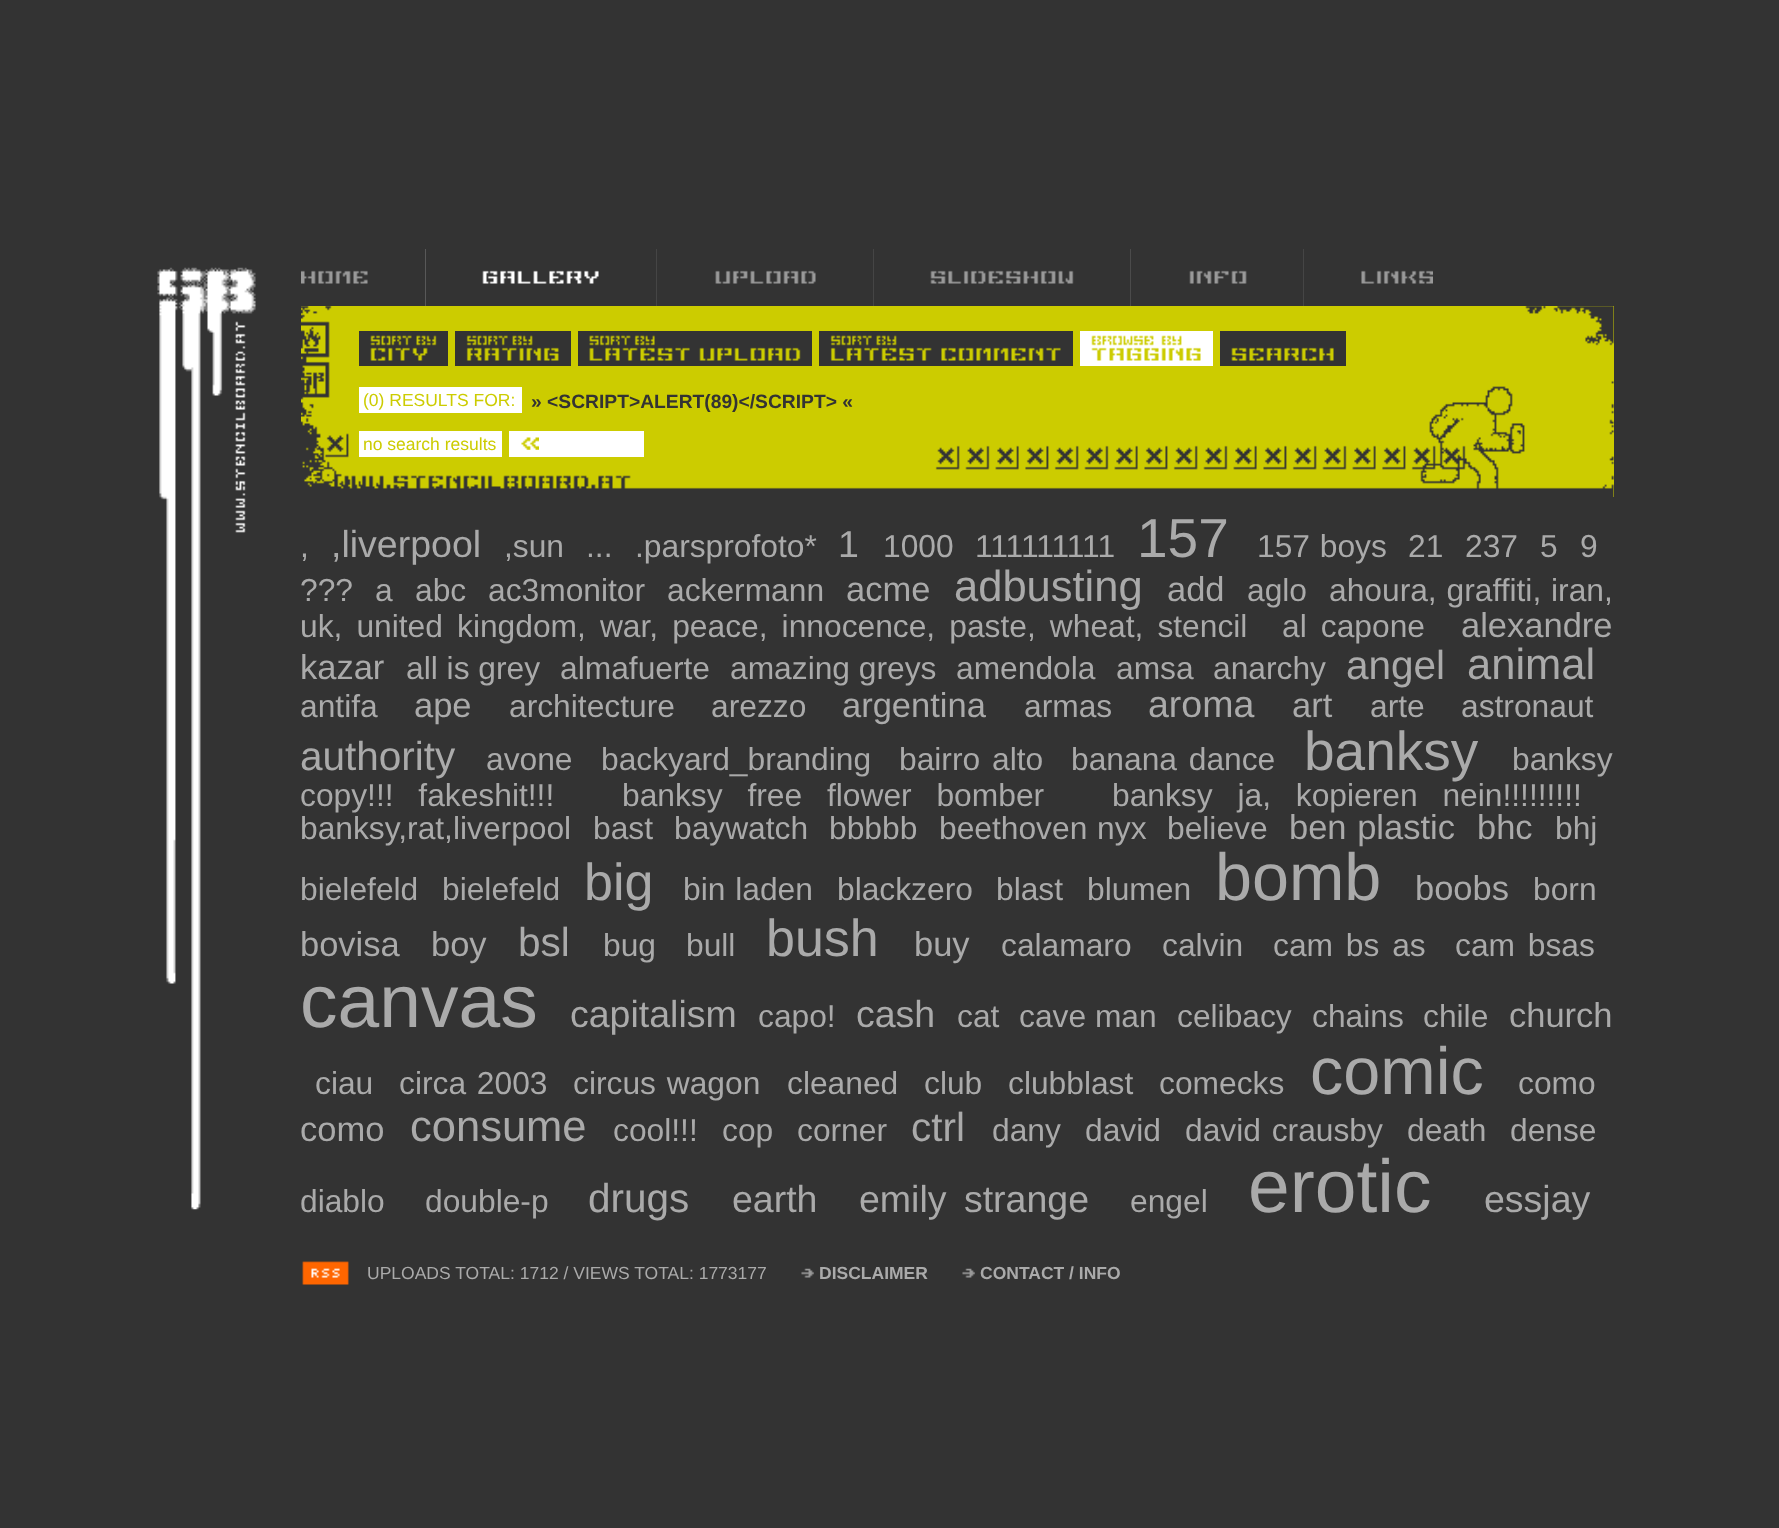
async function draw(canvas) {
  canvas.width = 1779
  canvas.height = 1528
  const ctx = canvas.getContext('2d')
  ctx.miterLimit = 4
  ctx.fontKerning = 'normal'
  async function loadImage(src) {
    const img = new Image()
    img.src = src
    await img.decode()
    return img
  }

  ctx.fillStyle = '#333'
  ctx.fillRect(0, 0, 1779, 1528)
  ctx.drawImage(await loadImage('image0.png'), 157, 267, 99, 943)
  ctx.fillStyle = '#999'
  ctx.fillRect(301, 270, 67, 14)
  ctx.fillStyle = '#fff'
  ctx.fillRect(425, 249, 174, 57)
  ctx.drawImage(await loadImage('image1.png'), 301, 249, 125, 57)
  ctx.fillStyle = '#999'
  ctx.fillRect(656, 249, 160, 57)
  ctx.drawImage(await loadImage('image2.png'), 425, 249, 232, 57)
  ctx.fillRect(873, 249, 258, 57)
  ctx.drawImage(await loadImage('image3.png'), 656, 249, 218, 57)
  ctx.drawImage(await loadImage('image4.png'), 873, 249, 258, 57)
  ctx.fillRect(1189, 249, 115, 57)
  ctx.drawImage(await loadImage('image5.png'), 1130, 249, 174, 57)
  ctx.fillRect(1361, 270, 72, 14)
  ctx.drawImage(await loadImage('image6.png'), 1303, 249, 130, 57)
  ctx.fillStyle = '#cc0'
  ctx.fillRect(301, 306, 1313, 191)
  ctx.drawImage(await loadImage('image7.png'), 301, 306, 1313, 191)
  ctx.fillStyle = '#333'
  ctx.fillRect(359, 331, 89, 35)
  ctx.drawImage(await loadImage('image8.png'), 370, 335, 67, 26)
  ctx.fillRect(455, 331, 116, 35)
  ctx.drawImage(await loadImage('image9.png'), 466, 335, 93, 26)
  ctx.fillRect(578, 331, 234, 35)
  ctx.drawImage(await loadImage('image10.png'), 589, 335, 212, 26)
  ctx.fillRect(819, 331, 254, 35)
  ctx.drawImage(await loadImage('image11.png'), 830, 335, 231, 26)
  ctx.fillStyle = '#fff'
  ctx.fillRect(1080, 331, 133, 35)
  ctx.drawImage(await loadImage('image12.png'), 1091, 335, 110, 26)
  ctx.fillStyle = '#333'
  ctx.fillRect(1220, 331, 126, 35)
  ctx.drawImage(await loadImage('image13.png'), 1231, 347, 103, 14)
  ctx.fillStyle = '#fff'
  ctx.fillRect(359, 387, 163, 26)
  ctx.font = '17.5px Liberation Sans'
  ctx.fillStyle = '#cc0'
  ctx.fillText('(0) RESULTS FOR:', 363, 406)
  ctx.font = 'bold 19.25px Liberation Sans'
  ctx.fillStyle = '#333'
  ctx.fillText('» <SCRIPT>ALERT(89)<\/SCRIPT> «', 531, 408)
  ctx.fillStyle = '#fff'
  ctx.fillRect(359, 431, 143, 26)
  ctx.font = '17.5px Liberation Sans'
  ctx.fillStyle = '#cc0'
  ctx.fillText('no search results', 363, 450)
  ctx.fillStyle = '#fff'
  ctx.fillRect(509, 431, 135, 26)
  ctx.drawImage(await loadImage('image14.png'), 521, 437, 18, 13)
  ctx.font = '31.75px Liberation Sans'
  ctx.fillStyle = '#aaa'
  ctx.fillText(',', 300, 557)
  ctx.font = '37.5px Liberation Sans'
  ctx.fillText(',liverpool', 331, 557)
  ctx.font = '31.75px Liberation Sans'
  ctx.fillText(',sun', 504, 557)
  ctx.fillText('...', 586, 557)
  ctx.fillText('.parsprofoto*', 635, 557)
  ctx.font = '37.5px Liberation Sans'
  ctx.fillText('1', 838, 557)
  ctx.font = '31.75px Liberation Sans'
  ctx.fillText('1000', 883, 557)
  ctx.fillText('111111111', 975, 557)
  ctx.font = '55px Liberation Sans'
  ctx.fillText('157', 1137, 557)
  ctx.wordSpacing = '1px'
  ctx.font = '31.75px Liberation Sans'
  ctx.fillText('157 boys', 1257, 557)
  ctx.wordSpacing = '0px'
  ctx.fillText('21', 1408, 557)
  ctx.fillText('237', 1465, 557)
  ctx.fillText('5', 1540, 557)
  ctx.fillText('9', 1580, 557)
  ctx.fillText('???', 300, 601)
  ctx.fillText('a', 375, 601)
  ctx.fillText('abc', 415, 601)
  ctx.fillText('ac3monitor', 488, 601)
  ctx.fillText('ackermann', 667, 601)
  ctx.font = '34.5px Liberation Sans'
  ctx.fillText('acme', 846, 601)
  ctx.font = '43.5px Liberation Sans'
  ctx.fillText('adbusting', 954, 601)
  ctx.font = '34.5px Liberation Sans'
  ctx.fillText('add', 1167, 601)
  ctx.font = '31.75px Liberation Sans'
  ctx.fillText('aglo', 1247, 601)
  ctx.wordSpacing = '1px'
  ctx.fillText('ahoura, graffiti, iran,', 1329, 601)
  ctx.wordSpacing = '5.25px'
  ctx.fillText('uk, united kingdom, war, peace, innocence, paste, wheat, stencil', 300, 637)
  ctx.fillText('al capone', 1282, 637)
  ctx.wordSpacing = '0px'
  ctx.font = '34.5px Liberation Sans'
  ctx.fillText('alexandre', 1461, 637)
  ctx.fillText('kazar', 300, 679)
  ctx.font = '31.75px Liberation Sans'
  ctx.fillText('all is grey', 406, 679)
  ctx.fillText('almafuerte', 560, 679)
  ctx.fillText('amazing greys', 730, 679)
  ctx.fillText('amendola', 956, 679)
  ctx.fillText('amsa', 1116, 679)
  ctx.fillText('anarchy', 1213, 679)
  ctx.font = '40.5px Liberation Sans'
  ctx.fillText('angel', 1346, 679)
  ctx.font = '43.5px Liberation Sans'
  ctx.fillText('animal', 1467, 679)
  ctx.font = '31.75px Liberation Sans'
  ctx.fillText('antifa', 300, 717)
  ctx.font = '34.5px Liberation Sans'
  ctx.fillText('ape', 414, 717)
  ctx.font = '31.75px Liberation Sans'
  ctx.fillText('architecture', 509, 717)
  ctx.fillText('arezzo', 711, 717)
  ctx.font = '34.5px Liberation Sans'
  ctx.fillText('argentina', 842, 717)
  ctx.font = '31.75px Liberation Sans'
  ctx.fillText('armas', 1024, 717)
  ctx.font = '37.5px Liberation Sans'
  ctx.fillText('aroma', 1148, 717)
  ctx.font = '34.5px Liberation Sans'
  ctx.fillText('art', 1292, 717)
  ctx.font = '31.75px Liberation Sans'
  ctx.fillText('arte', 1370, 717)
  ctx.fillText('astronaut', 1461, 717)
  ctx.font = '40.5px Liberation Sans'
  ctx.fillText('authority', 300, 770)
  ctx.font = '31.75px Liberation Sans'
  ctx.fillText('avone', 486, 770)
  ctx.fillText('backyard_branding', 601, 770)
  ctx.wordSpacing = '3px'
  ctx.fillText('bairro alto', 899, 770)
  ctx.fillText('banana dance', 1071, 770)
  ctx.wordSpacing = '0px'
  ctx.font = '55px Liberation Sans'
  ctx.fillText('banksy', 1304, 770)
  ctx.font = '31.75px Liberation Sans'
  ctx.fillText('banksy', 1512, 770)
  ctx.wordSpacing = '16px'
  ctx.fillText('copy!!! fakeshit!!!', 300, 806)
  ctx.fillText('banksy free flower bomber', 622, 806)
  ctx.fillText('banksy ja, kopieren nein!!!!!!!!!', 1112, 806)
  ctx.wordSpacing = '0px'
  ctx.fillText('banksy,rat,liverpool', 300, 839)
  ctx.fillText('bast', 593, 839)
  ctx.fillText('baywatch', 674, 839)
  ctx.fillText('bbbbb', 829, 839)
  ctx.wordSpacing = '1px'
  ctx.fillText('beethoven nyx', 939, 839)
  ctx.wordSpacing = '0px'
  ctx.fillText('believe', 1167, 839)
  ctx.wordSpacing = '1px'
  ctx.font = '34.5px Liberation Sans'
  ctx.fillText('ben plastic', 1289, 839)
  ctx.wordSpacing = '0px'
  ctx.fillText('bhc', 1477, 839)
  ctx.font = '31.75px Liberation Sans'
  ctx.fillText('bhj', 1555, 839)
  ctx.fillText('bielefeld', 300, 900)
  ctx.fillText('bielefeld', 442, 900)
  ctx.font = '52px Liberation Sans'
  ctx.fillText('big', 584, 900)
  ctx.wordSpacing = '1px'
  ctx.font = '31.75px Liberation Sans'
  ctx.fillText('bin laden', 683, 900)
  ctx.wordSpacing = '0px'
  ctx.fillText('blackzero', 837, 900)
  ctx.fillText('blast', 996, 900)
  ctx.fillText('blumen', 1087, 900)
  ctx.font = '66.5px Liberation Sans'
  ctx.fillText('bomb', 1215, 900)
  ctx.font = '34.5px Liberation Sans'
  ctx.fillText('boobs', 1415, 900)
  ctx.font = '31.75px Liberation Sans'
  ctx.fillText('born', 1533, 900)
  ctx.font = '34.5px Liberation Sans'
  ctx.fillText('bovisa', 300, 956)
  ctx.fillText('boy', 431, 956)
  ctx.font = '40.5px Liberation Sans'
  ctx.fillText('bsl', 518, 956)
  ctx.font = '31.75px Liberation Sans'
  ctx.fillText('bug', 603, 956)
  ctx.fillText('bull', 686, 956)
  ctx.font = '52px Liberation Sans'
  ctx.fillText('bush', 766, 956)
  ctx.font = '34.5px Liberation Sans'
  ctx.fillText('buy', 914, 956)
  ctx.font = '31.75px Liberation Sans'
  ctx.fillText('calamaro', 1001, 956)
  ctx.fillText('calvin', 1162, 956)
  ctx.wordSpacing = '4px'
  ctx.fillText('cam bs as', 1273, 956)
  ctx.fillText('cam bsas', 1455, 956)
  ctx.wordSpacing = '0px'
  ctx.font = '75px Liberation Sans'
  ctx.fillText('canvas', 300, 1027)
  ctx.font = '37.5px Liberation Sans'
  ctx.fillText('capitalism', 570, 1027)
  ctx.font = '31.75px Liberation Sans'
  ctx.fillText('capo!', 758, 1027)
  ctx.font = '37.5px Liberation Sans'
  ctx.fillText('cash', 856, 1027)
  ctx.font = '31.75px Liberation Sans'
  ctx.fillText('cat', 957, 1027)
  ctx.fillText('cave man', 1019, 1027)
  ctx.fillText('celibacy', 1177, 1027)
  ctx.fillText('chains', 1312, 1027)
  ctx.fillText('chile', 1423, 1027)
  ctx.font = '34.5px Liberation Sans'
  ctx.fillText('church', 1509, 1027)
  ctx.font = '31.75px Liberation Sans'
  ctx.fillText('ciau', 315, 1094)
  ctx.wordSpacing = '2px'
  ctx.fillText('circa 2003', 399, 1094)
  ctx.fillText('circus wagon', 573, 1094)
  ctx.wordSpacing = '0px'
  ctx.fillText('cleaned', 787, 1094)
  ctx.fillText('club', 924, 1094)
  ctx.fillText('clubblast', 1008, 1094)
  ctx.fillText('comecks', 1159, 1094)
  ctx.font = '66.5px Liberation Sans'
  ctx.fillText('comic', 1310, 1094)
  ctx.font = '31.75px Liberation Sans'
  ctx.fillText('como', 1518, 1094)
  ctx.font = '34.5px Liberation Sans'
  ctx.fillText('como', 300, 1141)
  ctx.font = '43.5px Liberation Sans'
  ctx.fillText('consume', 410, 1141)
  ctx.font = '31.75px Liberation Sans'
  ctx.fillText('cool!!!', 613, 1141)
  ctx.fillText('cop', 722, 1141)
  ctx.fillText('corner', 797, 1141)
  ctx.font = '40.5px Liberation Sans'
  ctx.fillText('ctrl', 911, 1141)
  ctx.font = '31.75px Liberation Sans'
  ctx.fillText('dany', 992, 1141)
  ctx.fillText('david', 1085, 1141)
  ctx.wordSpacing = '2px'
  ctx.fillText('david crausby', 1185, 1141)
  ctx.wordSpacing = '0px'
  ctx.fillText('death', 1407, 1141)
  ctx.fillText('dense', 1510, 1141)
  ctx.fillText('diablo', 300, 1212)
  ctx.fillText('double-p', 425, 1212)
  ctx.font = '40.5px Liberation Sans'
  ctx.fillText('drugs', 588, 1212)
  ctx.font = '37.5px Liberation Sans'
  ctx.fillText('earth', 732, 1212)
  ctx.wordSpacing = '7px'
  ctx.fillText('emily strange', 859, 1212)
  ctx.wordSpacing = '0px'
  ctx.font = '31.75px Liberation Sans'
  ctx.fillText('engel', 1130, 1212)
  ctx.font = '75px Liberation Sans'
  ctx.fillText('erotic', 1248, 1212)
  ctx.font = '37.5px Liberation Sans'
  ctx.fillText('essjay', 1484, 1212)
  ctx.drawImage(await loadImage('image15.png'), 302, 1261, 47, 24)
  ctx.font = '17.5px Liberation Sans'
  ctx.fillText('UPLOADS TOTAL: 1712 / VIEWS TOTAL: 1773177', 367, 1279)
  ctx.drawImage(await loadImage('image16.png'), 801, 1268, 13, 10)
  ctx.font = 'bold 17.5px Liberation Sans'
  ctx.fillText('DISCLAIMER', 819, 1279)
  ctx.drawImage(await loadImage('image16.png'), 962, 1268, 13, 10)
  ctx.fillText('CONTACT / INFO', 980, 1279)
}

draw(document.querySelector('canvas'))
